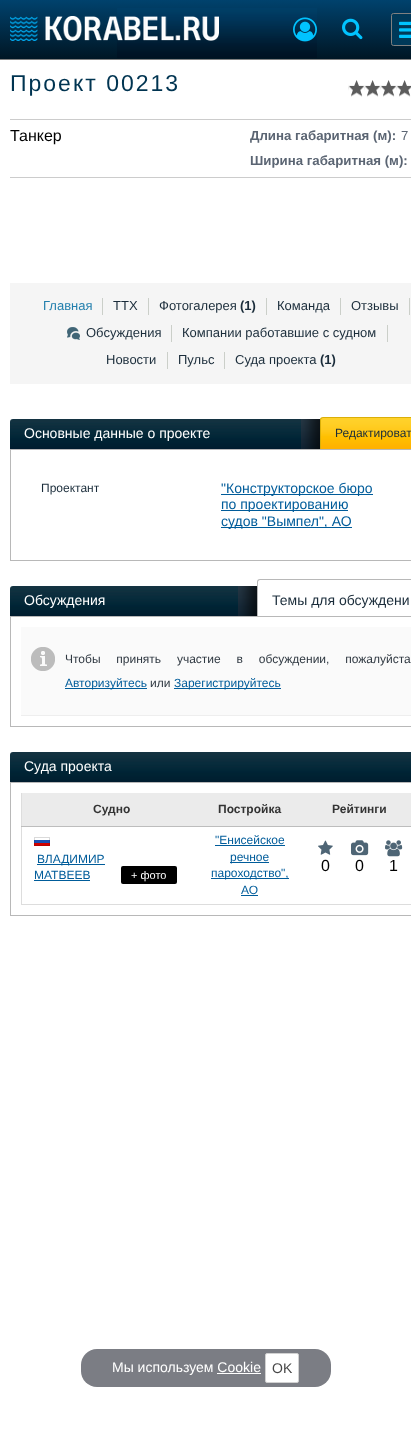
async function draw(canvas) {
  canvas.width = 411
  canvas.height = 1433
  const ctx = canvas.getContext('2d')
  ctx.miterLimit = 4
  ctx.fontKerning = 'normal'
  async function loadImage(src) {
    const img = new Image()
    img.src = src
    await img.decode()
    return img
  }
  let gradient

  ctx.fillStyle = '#fff'
  ctx.fillRect(0, 0, 411, 1433)
  ctx.fillStyle = '#808080'
  ctx.fillRect(0, 59, 411, 1)
  gradient = ctx.createLinearGradient(222, 0, 222, 59)
  gradient.addColorStop(0, '#00426d')
  gradient.addColorStop(1, '#001624')
  ctx.fillStyle = gradient
  ctx.fillRect(0, 0, 411, 59)
  ctx.drawImage(await loadImage('image0.png'), 117, 8, 200, 50)
  ctx.drawImage(await loadImage('image1.png'), 293, 17, 24, 25)
  ctx.fillStyle = '#003959'
  ctx.beginPath()
  ctx.roundRect(391.5, 13.5, 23, 32, 2)
  ctx.fill()
  ctx.strokeStyle = '#808080'
  ctx.stroke()
  ctx.drawImage(await loadImage('image2.png'), 399, 21, 12, 17)
  ctx.drawImage(await loadImage('image3.png'), 10, 16, 209, 25)
  ctx.drawImage(await loadImage('image4.png'), 342, 18, 21, 22)
  ctx.fillStyle = '#ccc'
  ctx.fillRect(10, 119, 401, 1)
  ctx.letterSpacing = '2px'
  ctx.font = '23px Liberation Sans'
  ctx.fillStyle = '#003451'
  ctx.fillText('Проект 00213', 10, 91)
  ctx.drawImage(await loadImage('image5.png'), 348, 81, 8, 16)
  ctx.drawImage(await loadImage('image6.png'), 356, 80, 8, 17)
  ctx.drawImage(await loadImage('image5.png'), 364, 81, 8, 16)
  ctx.drawImage(await loadImage('image6.png'), 372, 80, 8, 17)
  ctx.drawImage(await loadImage('image5.png'), 380, 81, 8, 16)
  ctx.drawImage(await loadImage('image6.png'), 388, 80, 8, 17)
  ctx.drawImage(await loadImage('image5.png'), 396, 81, 8, 16)
  ctx.drawImage(await loadImage('image7.png'), 404, 80, 7, 17)
  ctx.fillStyle = '#ccc'
  ctx.fillRect(10, 177, 401, 1)
  ctx.letterSpacing = '0px'
  ctx.font = '16px Liberation Sans'
  ctx.fillStyle = '#000'
  ctx.fillText('Танкер', 10, 141)
  ctx.font = 'bold 13.25px Liberation Sans'
  ctx.fillStyle = '#5b6573'
  ctx.fillText('Длина габаритная (м):', 250, 140)
  ctx.font = '13.25px Liberation Sans'
  ctx.fillText('7', 401, 140)
  ctx.font = 'bold 13.25px Liberation Sans'
  ctx.fillText('Ширина габаритная (м):', 250, 165)
  ctx.fillStyle = '#f5f5f5'
  ctx.fillRect(10, 283, 401, 101)
  ctx.fillStyle = '#cbcfc9'
  ctx.fillRect(102, 298, 1, 17)
  ctx.font = '13px Liberation Sans'
  ctx.fillStyle = '#227fad'
  ctx.fillText('Главная', 43, 310)
  ctx.fillStyle = '#cbcfc9'
  ctx.fillRect(148, 298, 1, 17)
  ctx.fillStyle = '#1a2c3a'
  ctx.fillText('ТТХ', 113, 310)
  ctx.fillStyle = '#cbcfc9'
  ctx.fillRect(266, 298, 1, 17)
  ctx.fillStyle = '#1a2c3a'
  ctx.fillText('Фотогалерея', 159, 310)
  ctx.font = 'bold 13px Liberation Sans'
  ctx.fillText('(1)', 240, 310)
  ctx.fillStyle = '#cbcfc9'
  ctx.fillRect(340, 298, 1, 17)
  ctx.font = '13px Liberation Sans'
  ctx.fillStyle = '#1a2c3a'
  ctx.fillText('Команда', 277, 310)
  ctx.fillStyle = '#cbcfc9'
  ctx.fillRect(409, 298, 1, 17)
  ctx.fillStyle = '#1a2c3a'
  ctx.fillText('Отзывы', 351, 310)
  ctx.fillStyle = '#cbcfc9'
  ctx.fillRect(171, 325, 1, 17)
  ctx.drawImage(await loadImage('image8.png'), 67, 327, 13, 13)
  ctx.fillStyle = '#1a2c3a'
  ctx.fillText('Обсуждения', 86, 337)
  ctx.fillStyle = '#cbcfc9'
  ctx.fillRect(387, 325, 1, 17)
  ctx.fillStyle = '#1a2c3a'
  ctx.fillText('Компании работавшие с судном', 182, 337)
  ctx.fillStyle = '#cbcfc9'
  ctx.fillRect(167, 352, 1, 17)
  ctx.fillStyle = '#1a2c3a'
  ctx.fillText('Новости', 106, 364)
  ctx.fillStyle = '#cbcfc9'
  ctx.fillRect(224, 352, 1, 17)
  ctx.fillStyle = '#1a2c3a'
  ctx.fillText('Пульс', 178, 364)
  ctx.fillText('Суда проекта', 235, 364)
  ctx.font = 'bold 13px Liberation Sans'
  ctx.fillText('(1)', 320, 364)
  ctx.drawImage(await loadImage('image9.png'), 10, 419, 291, 30)
  ctx.font = '14px Liberation Sans'
  ctx.fillStyle = '#fff'
  ctx.fillText('Основные данные о проекте', 24, 438)
  ctx.drawImage(await loadImage('image10.png'), 301, 419, 20, 30)
  ctx.drawImage(await loadImage('image11.png'), 320, 418, 91, 31)
  ctx.fillStyle = '#daaf09'
  ctx.beginPath()
  ctx.moveTo(323, 417)
  ctx.lineTo(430, 417)
  ctx.bezierCurveTo(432, 417, 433, 418, 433, 420)
  ctx.lineTo(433, 449)
  ctx.lineTo(320, 449)
  ctx.lineTo(320, 420)
  ctx.bezierCurveTo(320, 418, 321, 417, 323, 417)
  ctx.closePath()
  ctx.moveTo(323, 418)
  ctx.lineTo(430, 418)
  ctx.bezierCurveTo(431, 418, 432, 419, 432, 420)
  ctx.lineTo(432, 449)
  ctx.lineTo(321, 449)
  ctx.lineTo(321, 420)
  ctx.bezierCurveTo(321, 419, 322, 418, 323, 418)
  ctx.closePath()
  ctx.fill('evenodd')
  ctx.font = '12px Liberation Sans'
  ctx.fillStyle = '#1a2c3a'
  ctx.fillText('Редактироват', 335, 437)
  ctx.strokeStyle = '#b8b8b8'
  ctx.strokeRect(10.5, 449.5, 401, 111)
  ctx.fillText('Проектант', 41, 492)
  ctx.fillStyle = '#005c9a'
  ctx.fillRect(221, 494, 152, 1)
  ctx.font = '14px Liberation Sans'
  ctx.fillText('"Конструкторское бюро', 221, 493)
  ctx.fillRect(221, 510, 127, 1)
  ctx.fillText('по проектированию', 221, 509)
  ctx.fillRect(221, 527, 131, 1)
  ctx.fillText('судов "Вымпел", АО', 221, 526)
  ctx.drawImage(await loadImage('image12.png'), 10, 586, 228, 30)
  ctx.fillStyle = '#fff'
  ctx.fillText('Обсуждения', 24, 605)
  ctx.drawImage(await loadImage('image13.png'), 238, 586, 19, 30)
  ctx.fillStyle = '#b8b8b8'
  ctx.beginPath()
  ctx.moveTo(260, 579)
  ctx.lineTo(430, 579)
  ctx.bezierCurveTo(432, 579, 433, 580, 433, 582)
  ctx.lineTo(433, 616)
  ctx.lineTo(257, 616)
  ctx.lineTo(257, 582)
  ctx.bezierCurveTo(257, 580, 258, 579, 260, 579)
  ctx.closePath()
  ctx.moveTo(260, 580)
  ctx.lineTo(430, 580)
  ctx.bezierCurveTo(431, 580, 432, 581, 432, 582)
  ctx.lineTo(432, 616)
  ctx.lineTo(258, 616)
  ctx.lineTo(258, 582)
  ctx.bezierCurveTo(258, 581, 259, 580, 260, 580)
  ctx.closePath()
  ctx.fill('evenodd')
  ctx.fillStyle = '#1a2c3a'
  ctx.fillText('Темы для обсуждени', 272, 605)
  ctx.strokeRect(10.5, 616.5, 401, 110)
  ctx.fillStyle = '#fafafa'
  ctx.fillRect(21, 627, 390, 88)
  ctx.fillStyle = '#eee'
  ctx.fillRect(21, 715, 390, 1)
  ctx.drawImage(await loadImage('image14.png'), 31, 647, 24, 24)
  ctx.wordSpacing = '12.5px'
  ctx.font = '12px Liberation Sans'
  ctx.fillStyle = '#303942'
  ctx.fillText('Чтобы принять участие в обсуждении, пожалуйста', 65, 663)
  ctx.fillStyle = '#005c9a'
  ctx.fillRect(65, 688, 82, 1)
  ctx.wordSpacing = '0px'
  ctx.fillText('Авторизуйтесь', 65, 687)
  ctx.fillStyle = '#303942'
  ctx.fillText('или', 150, 687)
  ctx.fillStyle = '#005c9a'
  ctx.fillRect(174, 688, 107, 1)
  ctx.fillText('Зарегистрируйтесь', 174, 687)
  ctx.drawImage(await loadImage('image15.png'), 10, 752, 401, 30)
  ctx.font = '14px Liberation Sans'
  ctx.fillStyle = '#fff'
  ctx.fillText('Суда проекта', 24, 771)
  ctx.strokeRect(10.5, 782.5, 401, 133)
  ctx.fillStyle = '#ddd'
  ctx.fillRect(21, 904, 390, 1)
  ctx.fillRect(21, 793, 1, 112)
  ctx.fillStyle = '#ebebeb'
  ctx.fillRect(22, 793, 389, 33)
  ctx.font = 'bold 12px Liberation Sans'
  ctx.fillStyle = '#333'
  ctx.fillText('Судно', 93, 813)
  ctx.fillText('Постройка', 218, 813)
  ctx.fillStyle = '#bdbdbd'
  ctx.fillRect(21, 826, 390, 1)
  ctx.fillStyle = '#333'
  ctx.fillText('Рейтинги', 332, 813)
  ctx.drawImage(await loadImage('image16.png'), 34, 837, 16, 9)
  ctx.fillStyle = '#005c9a'
  ctx.fillRect(37, 864, 68, 1)
  ctx.font = '12px Liberation Sans'
  ctx.fillText('ВЛАДИМИР', 37, 863)
  ctx.fillText('МАТВЕЕВ', 34, 879)
  ctx.fillRect(34, 880, 56, 1)
  ctx.fillStyle = '#000'
  ctx.beginPath()
  ctx.roundRect(121, 866, 56, 18, 2)
  ctx.fill()
  ctx.font = '11px Liberation Sans'
  ctx.fillStyle = '#fff'
  ctx.fillText('+ фото', 131, 879)
  ctx.font = '12px Liberation Sans'
  ctx.fillStyle = '#005c9a'
  ctx.fillText('"Енисейское', 215, 844)
  ctx.fillRect(215, 845, 70, 1)
  ctx.fillRect(230, 862, 39, 1)
  ctx.fillText('речное', 230, 861)
  ctx.fillRect(211, 878, 78, 1)
  ctx.fillText('пароходство",', 211, 877)
  ctx.fillText('АО', 241, 894)
  ctx.fillRect(241, 895, 17, 1)
  ctx.drawImage(await loadImage('image17.png'), 318, 840, 15, 15)
  ctx.font = '16px Liberation Sans'
  ctx.fillStyle = '#000'
  ctx.fillText('0', 321, 871)
  ctx.drawImage(await loadImage('image18.png'), 351, 840, 18, 16)
  ctx.fillText('0', 355, 871)
  ctx.drawImage(await loadImage('image19.png'), 385, 840, 18, 17)
  ctx.fillText('1', 389, 871)
  ctx.fillStyle = '#7b7d84'
  ctx.beginPath()
  ctx.roundRect(81, 1349, 250, 38, 16)
  ctx.fill()
  ctx.font = '14px Liberation Sans'
  ctx.fillStyle = '#fff'
  ctx.fillText('Мы используем Cookie', 112, 1372)
  ctx.beginPath()
  ctx.roundRect(265.5, 1353.5, 33, 29, 1.5)
  ctx.fill()
  ctx.strokeStyle = '#d1d1d1'
  ctx.stroke()
  ctx.fillStyle = '#474747'
  ctx.fillText('OK', 272, 1373)
  ctx.fillStyle = '#fff'
  ctx.fillRect(217, 1373, 44, 1)
}

draw(document.querySelector('canvas'))
